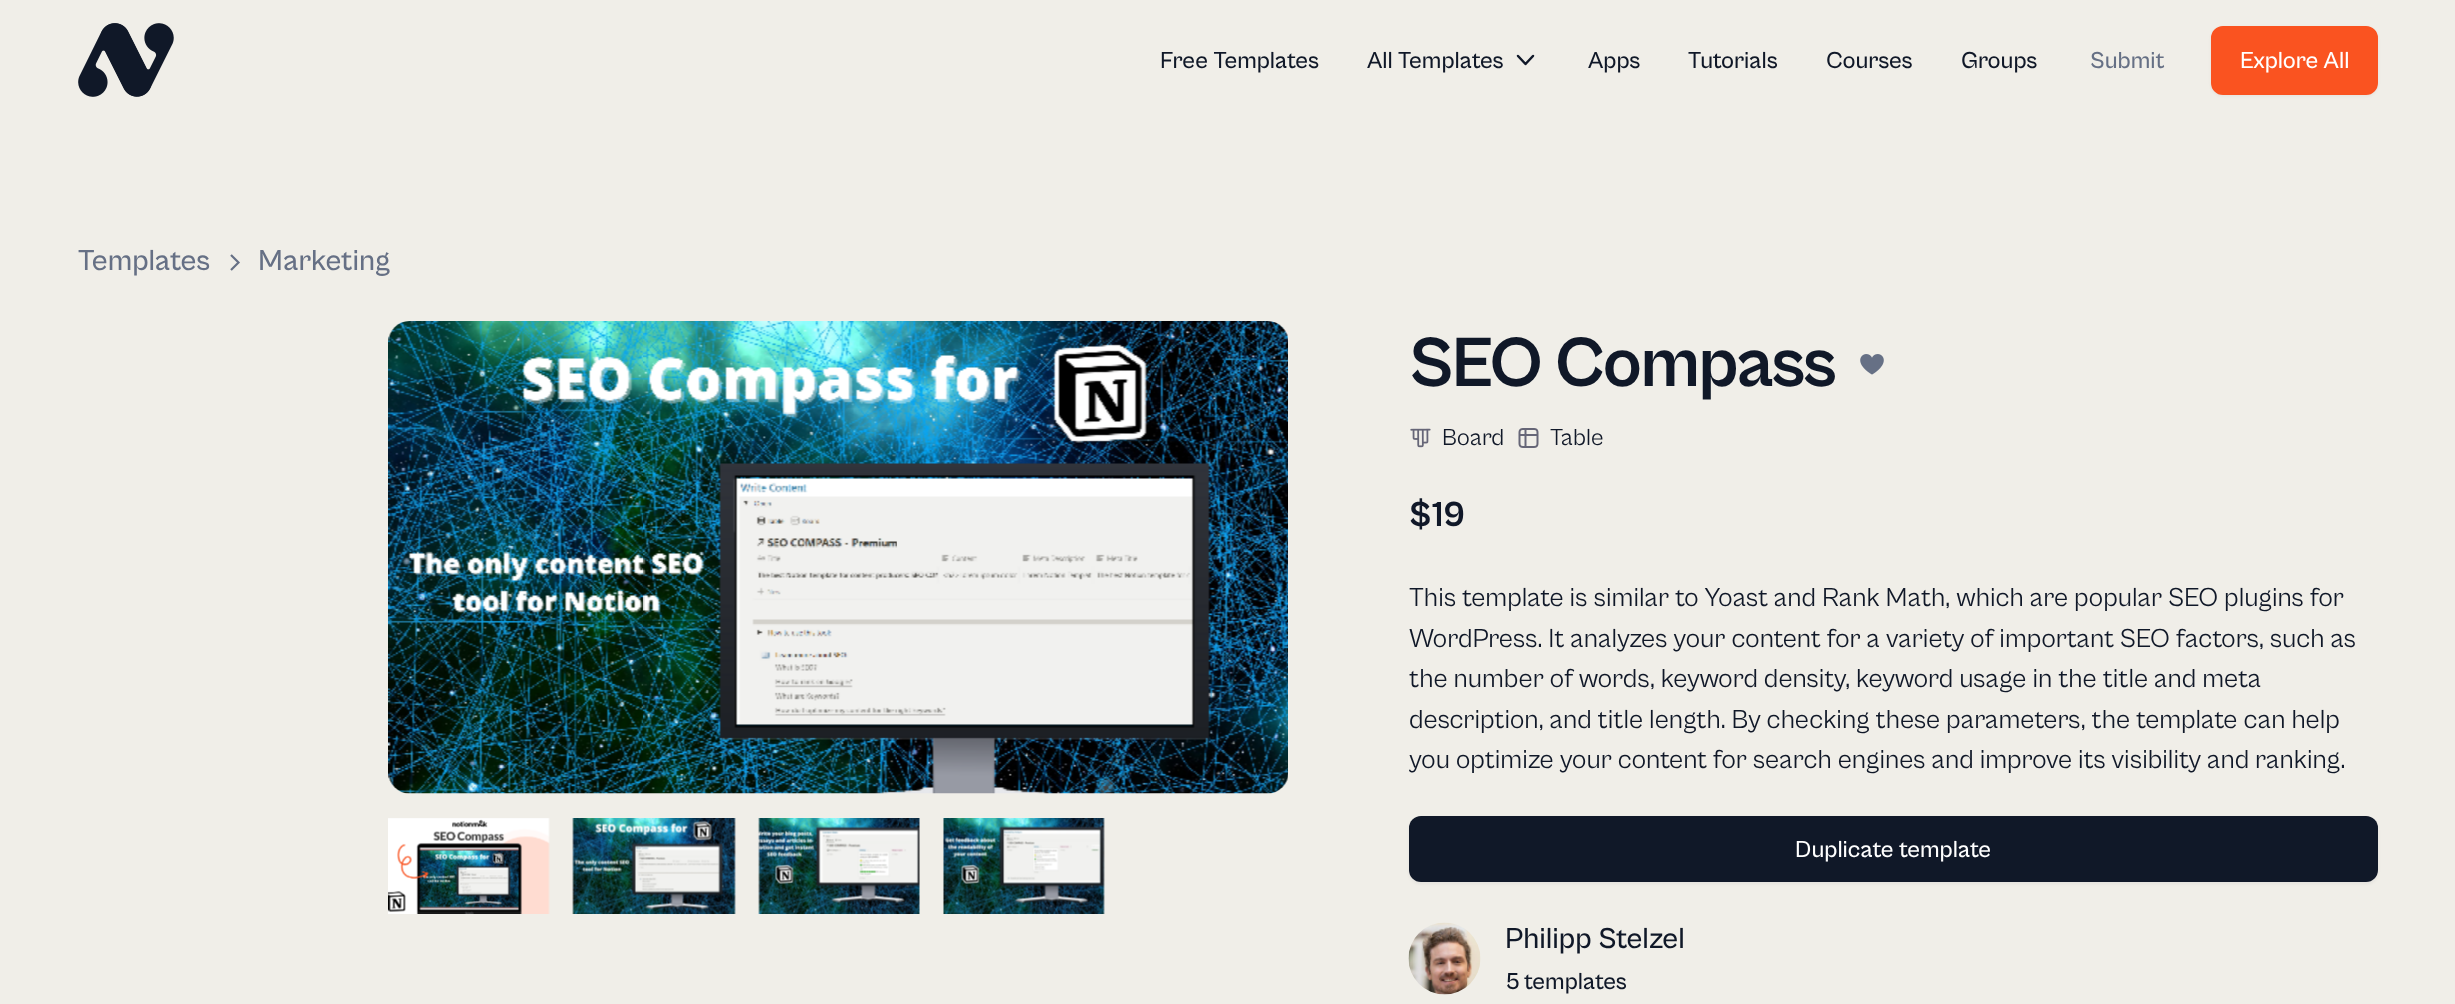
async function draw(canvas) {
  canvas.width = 2455
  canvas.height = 1004
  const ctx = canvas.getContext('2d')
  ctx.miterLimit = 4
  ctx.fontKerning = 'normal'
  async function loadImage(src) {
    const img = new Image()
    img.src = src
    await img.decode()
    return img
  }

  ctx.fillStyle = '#f0eee8'
  ctx.fillRect(0, 0, 2455, 1004)
  ctx.drawImage(await loadImage('image0.png'), 78, 23, 96, 74)
  ctx.font = '500 24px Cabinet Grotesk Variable'
  ctx.fillStyle = '#101828'
  ctx.fillText('Free Templates', 1160, 68)
  ctx.fillText('All Templates', 1367, 68)
  ctx.beginPath()
  ctx.moveTo(1518, 56)
  ctx.lineTo(1525.5, 64)
  ctx.lineTo(1533, 56)
  ctx.strokeStyle = '#101828'
  ctx.lineWidth = 2.5
  ctx.lineCap = 'round'
  ctx.lineJoin = 'round'
  ctx.stroke()
  ctx.fillText('Apps', 1588, 68)
  ctx.fillText('Tutorials', 1688, 68)
  ctx.fillText('Courses', 1826, 68)
  ctx.fillText('Groups', 1961, 68)
  ctx.fillStyle = '#667085'
  ctx.fillText('Submit', 2090, 68)
  ctx.fillStyle = '#1018280d'
  ctx.filter = 'blur(1.5px)'
  ctx.beginPath()
  ctx.roundRect(2211, 27, 167, 69, 12)
  ctx.fill()
  ctx.filter = 'none'
  ctx.fillStyle = '#fa5320'
  ctx.beginPath()
  ctx.roundRect(2212, 27, 165, 67, 11)
  ctx.fill()
  ctx.strokeStyle = '#fa5320'
  ctx.lineWidth = 2
  ctx.lineJoin = 'miter'
  ctx.stroke()
  ctx.fillStyle = '#fff'
  ctx.fillText('Explore All', 2240, 68)
  ctx.font = '500 30px Cabinet Grotesk Variable'
  ctx.fillStyle = '#667085'
  ctx.fillText('Templates', 78, 270)
  ctx.beginPath()
  ctx.moveTo(231, 255)
  ctx.lineTo(238.5, 262.5)
  ctx.lineTo(231, 270)
  ctx.strokeStyle = '#667085'
  ctx.lineWidth = 2.2
  ctx.lineCap = 'butt'
  ctx.stroke()
  ctx.fillText('Marketing', 258, 270)
  ctx.drawImage(await loadImage('image1.png'), 388, 321, 900, 473)
  ctx.drawImage(await loadImage('image2.png'), 388, 818, 162, 96)
  ctx.drawImage(await loadImage('image3.png'), 572, 818, 164, 96)
  ctx.drawImage(await loadImage('image4.png'), 758, 818, 162, 96)
  ctx.drawImage(await loadImage('image5.png'), 943, 818, 162, 96)
  ctx.letterSpacing = '-1.5px'
  ctx.font = 'bold 72px Cabinet Grotesk Variable'
  ctx.fillStyle = '#101828'
  ctx.fillText('SEO Compass', 1409, 386)
  ctx.drawImage(await loadImage('image6.png'), 1860, 354, 24, 21)
  ctx.drawImage(await loadImage('image7.png'), 1410, 428, 21, 20)
  ctx.letterSpacing = '0px'
  ctx.font = '24px Cabinet Grotesk Variable'
  ctx.fillText('Board', 1442, 445)
  ctx.drawImage(await loadImage('image8.png'), 1518, 428, 21, 20)
  ctx.fillText('Table', 1550, 445)
  ctx.font = 'bold 36px Cabinet Grotesk Variable'
  ctx.fillText('$19', 1409, 526)
  ctx.font = '27px Cabinet Grotesk Variable'
  ctx.fillText('This template is similar to Yoast and Rank Math, which are popular SEO plugins for', 1409, 606)
  ctx.fillText('WordPress. It analyzes your content for a variety of important SEO factors, such as', 1409, 647)
  ctx.fillText('the number of words, keyword density, keyword usage in the title and meta', 1409, 687)
  ctx.fillText('description, and title length. By checking these parameters, the template can help', 1409, 728)
  ctx.fillText('you optimize your content for search engines and improve its visibility and ranking.', 1409, 768)
  ctx.fillStyle = '#1018280d'
  ctx.filter = 'blur(1.5px)'
  ctx.beginPath()
  ctx.roundRect(1409, 818, 969, 66, 12)
  ctx.fill()
  ctx.filter = 'none'
  ctx.fillStyle = '#101828'
  ctx.beginPath()
  ctx.roundRect(1409, 816, 969, 66, 12)
  ctx.fill()
  ctx.font = '500 24px Cabinet Grotesk Variable'
  ctx.fillStyle = '#fff'
  ctx.fillText('Duplicate template', 1795, 857)
  ctx.drawImage(await loadImage('image9.png'), 1408, 922, 73, 73)
  ctx.font = '500 30px Cabinet Grotesk Variable'
  ctx.fillStyle = '#101828'
  ctx.fillText('Philipp Stelzel', 1505, 948)
  ctx.font = '500 24px Cabinet Grotesk Variable'
  ctx.fillText('5', 1505, 989)
  ctx.fillText('templates', 1524, 989)
}

draw(document.querySelector('canvas'))
